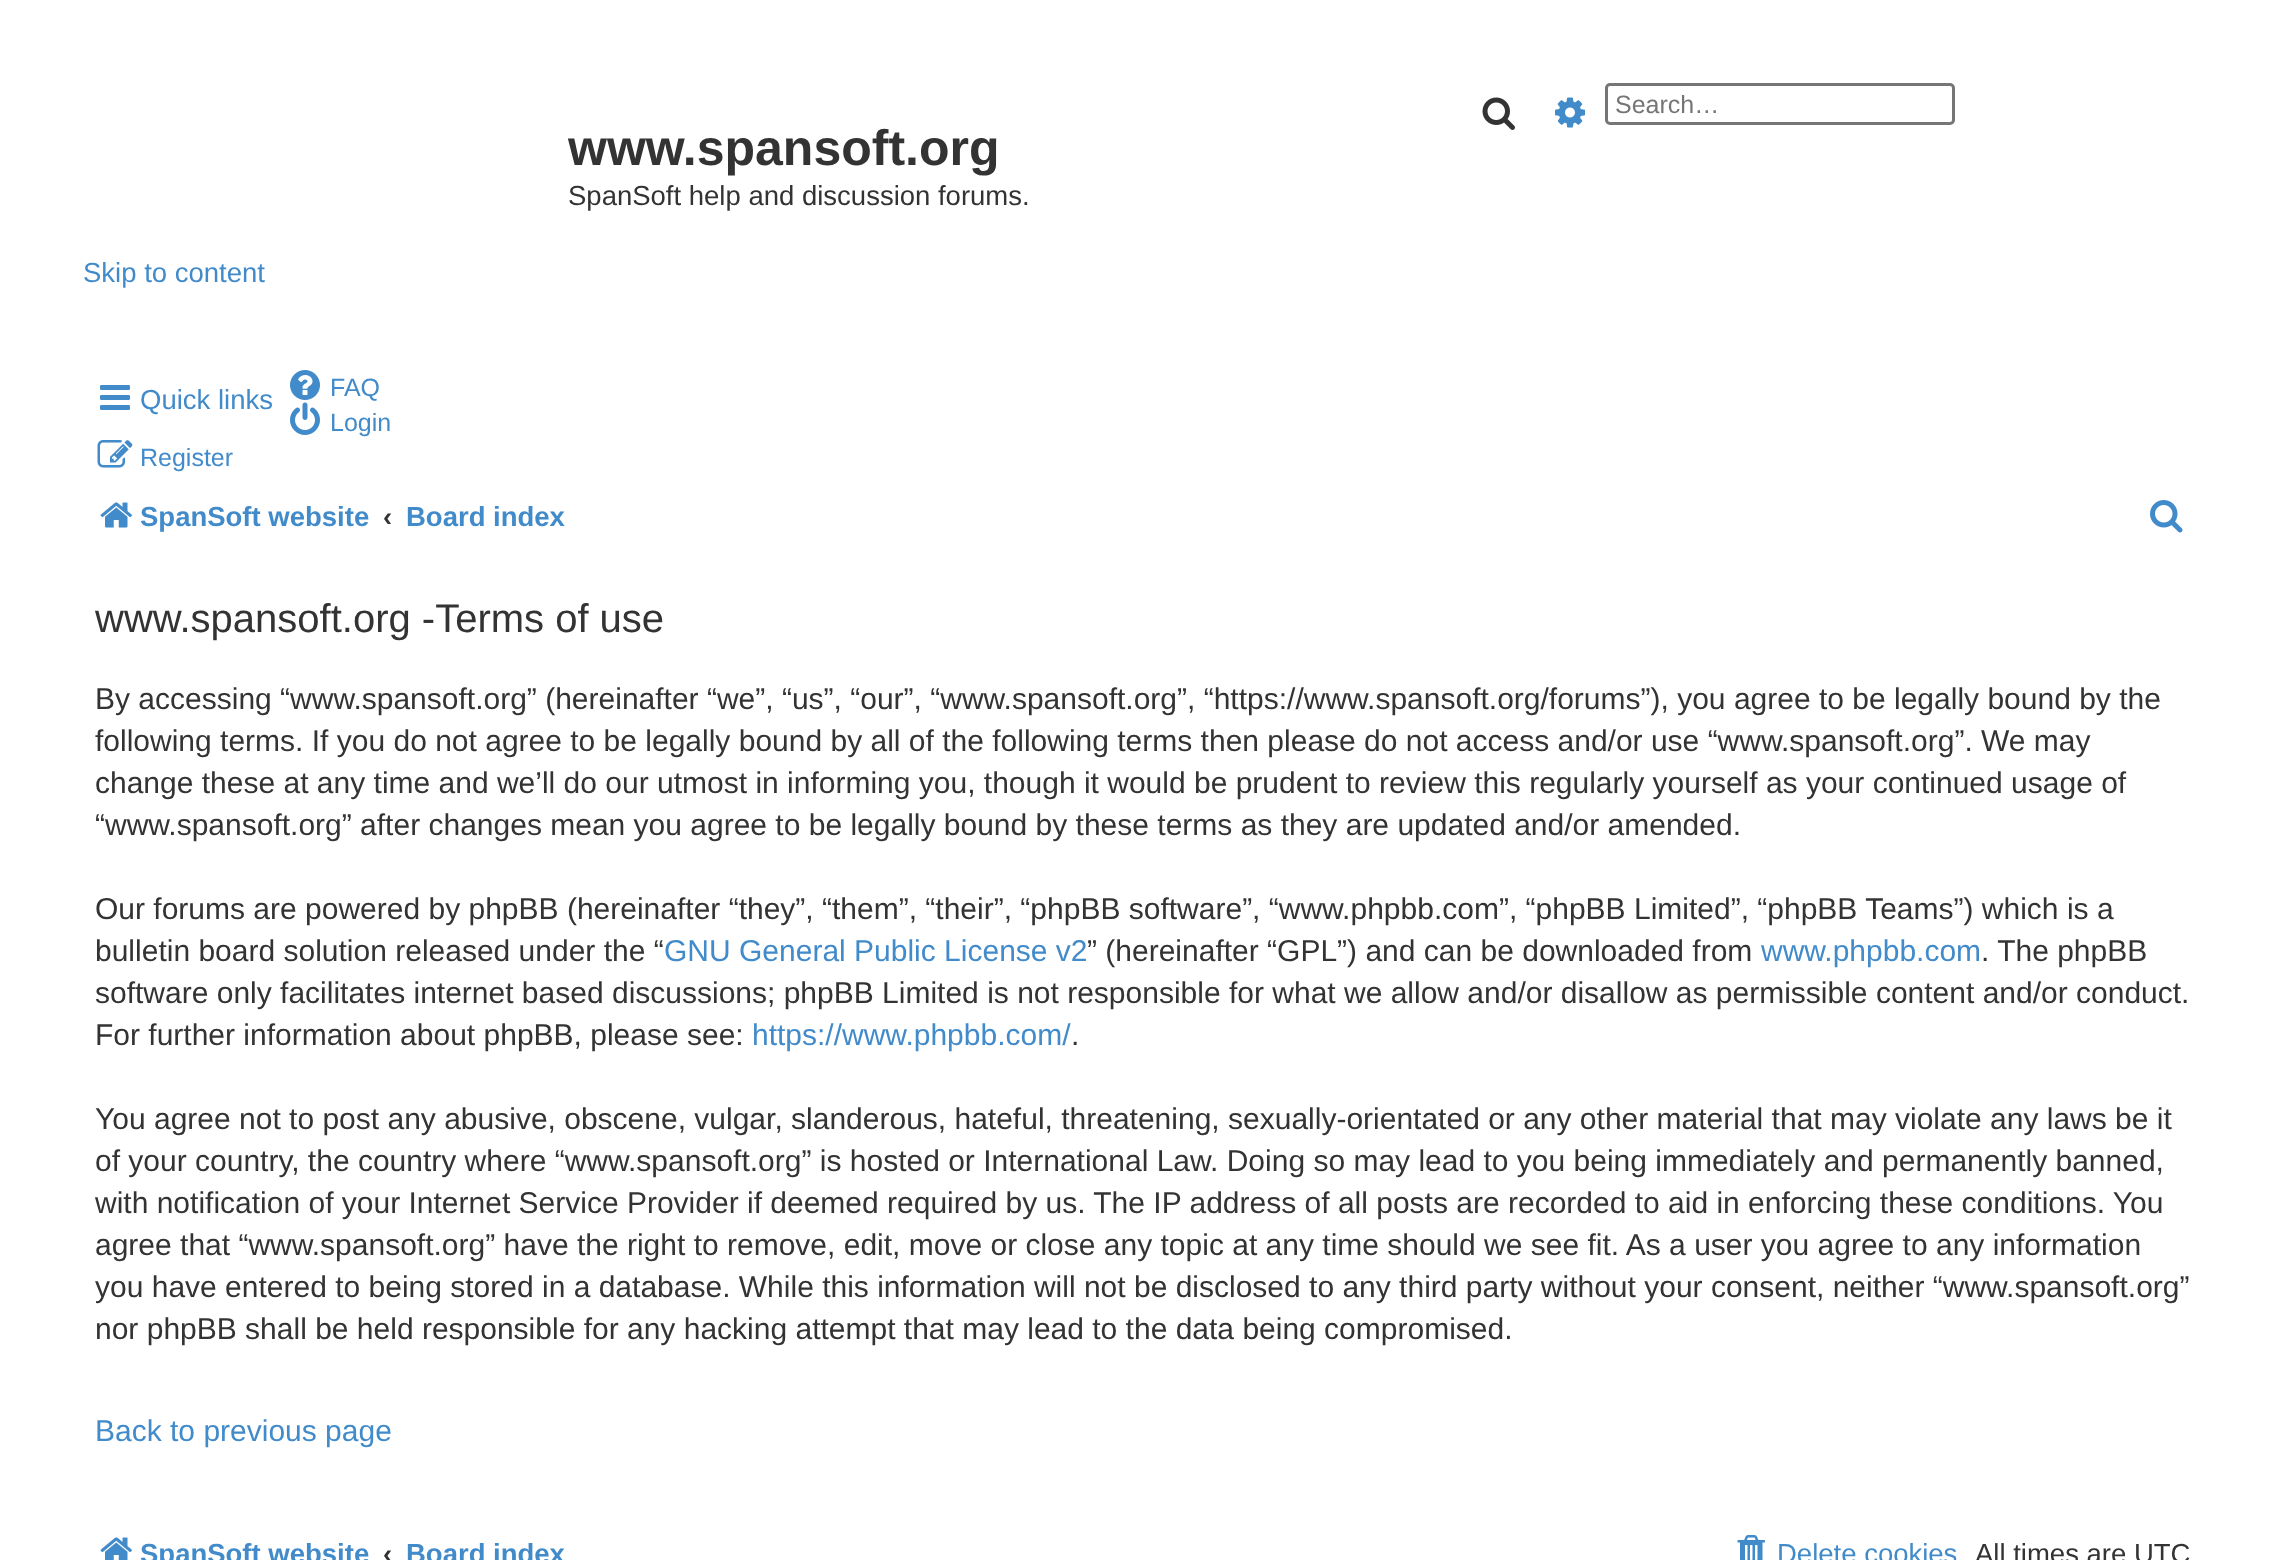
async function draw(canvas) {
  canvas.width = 2285
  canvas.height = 1560
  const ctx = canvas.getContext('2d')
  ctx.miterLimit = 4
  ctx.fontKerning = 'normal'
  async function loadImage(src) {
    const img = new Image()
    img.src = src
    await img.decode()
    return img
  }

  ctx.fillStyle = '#fff'
  ctx.fillRect(0, 0, 2285, 1560)
  ctx.drawImage(await loadImage('image0.png'), 1482, 97, 33, 33)
  ctx.drawImage(await loadImage('image1.png'), 1555, 97, 30, 31)
  ctx.beginPath()
  ctx.roundRect(1606.5, 84.5, 347, 39, 3.5)
  ctx.strokeStyle = '#767676'
  ctx.lineWidth = 3
  ctx.stroke()
  ctx.font = '25px Liberation Sans'
  ctx.fillStyle = '#757575'
  ctx.fillText('Search…', 1615, 113)
  ctx.font = 'bold 50px Liberation Sans'
  ctx.fillStyle = '#333'
  ctx.fillText('www.spansoft.org', 568, 165)
  ctx.font = '27.5px Liberation Sans'
  ctx.fillText('SpanSoft help and discussion forums.', 568, 205)
  ctx.fillStyle = '#428bca'
  ctx.fillText('Skip to content', 83, 282)
  ctx.drawImage(await loadImage('image2.png'), 290, 370, 30, 30)
  ctx.font = '25px Liberation Sans'
  ctx.fillText('FAQ', 330, 396)
  ctx.drawImage(await loadImage('image3.png'), 290, 402, 30, 33)
  ctx.fillText('Login', 330, 431)
  ctx.drawImage(await loadImage('image4.png'), 97, 440, 36, 28)
  ctx.fillText('Register', 140, 466)
  ctx.drawImage(await loadImage('image5.png'), 100, 385, 30, 25)
  ctx.font = '27.5px Liberation Sans'
  ctx.fillText('Quick links', 140, 409)
  ctx.drawImage(await loadImage('image6.png'), 100, 502, 32, 26)
  ctx.font = 'bold 27.5px Liberation Sans'
  ctx.fillText('SpanSoft website', 140, 526)
  ctx.fillStyle = '#333'
  ctx.fillText('‹', 383, 526)
  ctx.fillStyle = '#428bca'
  ctx.fillText('Board index', 406, 526)
  ctx.drawImage(await loadImage('image7.png'), 2150, 500, 33, 33)
  ctx.font = '40px Liberation Sans'
  ctx.fillStyle = '#333'
  ctx.fillText('www.spansoft.org -Terms of use', 95, 632)
  ctx.font = '30px Liberation Sans'
  ctx.fillText('By accessing “www.spansoft.org” (hereinafter “we”, “us”, “our”, “www.spansoft.org”, “https://www.spansoft.org/forums”), you agree to be legally bound by the', 95, 709)
  ctx.fillText('following terms. If you do not agree to be legally bound by all of the following terms then please do not access and/or use “www.spansoft.org”. We may', 95, 751)
  ctx.fillText('change these at any time and we’ll do our utmost in informing you, though it would be prudent to review this regularly yourself as your continued usage of', 95, 793)
  ctx.fillText('“www.spansoft.org” after changes mean you agree to be legally bound by these terms as they are updated and/or amended.', 95, 835)
  ctx.fillText('Our forums are powered by phpBB (hereinafter “they”, “them”, “their”, “phpBB software”, “www.phpbb.com”, “phpBB Limited”, “phpBB Teams”) which is a', 95, 919)
  ctx.fillText('bulletin board solution released under the “', 95, 961)
  ctx.fillStyle = '#428bca'
  ctx.fillText('GNU General Public License v2', 664, 961)
  ctx.fillStyle = '#333'
  ctx.fillText('” (hereinafter “GPL”) and can be downloaded from', 1087, 961)
  ctx.fillStyle = '#428bca'
  ctx.fillText('www.phpbb.com', 1761, 961)
  ctx.fillStyle = '#333'
  ctx.fillText('. The phpBB', 1981, 961)
  ctx.fillText('software only facilitates internet based discussions; phpBB Limited is not responsible for what we allow and/or disallow as permissible content and/or conduct.', 95, 1003)
  ctx.fillText('For further information about phpBB, please see:', 95, 1045)
  ctx.fillStyle = '#428bca'
  ctx.fillText('https://www.phpbb.com/', 752, 1045)
  ctx.fillStyle = '#333'
  ctx.fillText('.', 1071, 1045)
  ctx.fillText('You agree not to post any abusive, obscene, vulgar, slanderous, hateful, threatening, sexually-orientated or any other material that may violate any laws be it', 95, 1129)
  ctx.fillText('of your country, the country where “www.spansoft.org” is hosted or International Law. Doing so may lead to you being immediately and permanently banned,', 95, 1171)
  ctx.fillText('with notification of your Internet Service Provider if deemed required by us. The IP address of all posts are recorded to aid in enforcing these conditions. You', 95, 1213)
  ctx.fillText('agree that “www.spansoft.org” have the right to remove, edit, move or close any topic at any time should we see fit. As a user you agree to any information', 95, 1255)
  ctx.fillText('you have entered to being stored in a database. While this information will not be disclosed to any third party without your consent, neither “www.spansoft.org”', 95, 1297)
  ctx.fillText('nor phpBB shall be held responsible for any hacking attempt that may lead to the data being compromised.', 95, 1339)
  ctx.fillStyle = '#428bca'
  ctx.fillText('Back to previous page', 95, 1441)
  ctx.drawImage(await loadImage('image8.png'), 100, 1537, 32, 23)
  ctx.font = 'bold 27.5px Liberation Sans'
  ctx.fillText('SpanSoft website', 140, 1563)
  ctx.fillStyle = '#333'
  ctx.fillText('‹', 383, 1563)
  ctx.fillStyle = '#428bca'
  ctx.fillText('Board index', 406, 1563)
  ctx.drawImage(await loadImage('image9.png'), 1737, 1535, 28, 25)
  ctx.font = '27.5px Liberation Sans'
  ctx.fillText('Delete cookies', 1777, 1563)
  ctx.fillStyle = '#333'
  ctx.fillText('All times are UTC', 1975, 1563)
}

draw(document.querySelector('canvas'))
